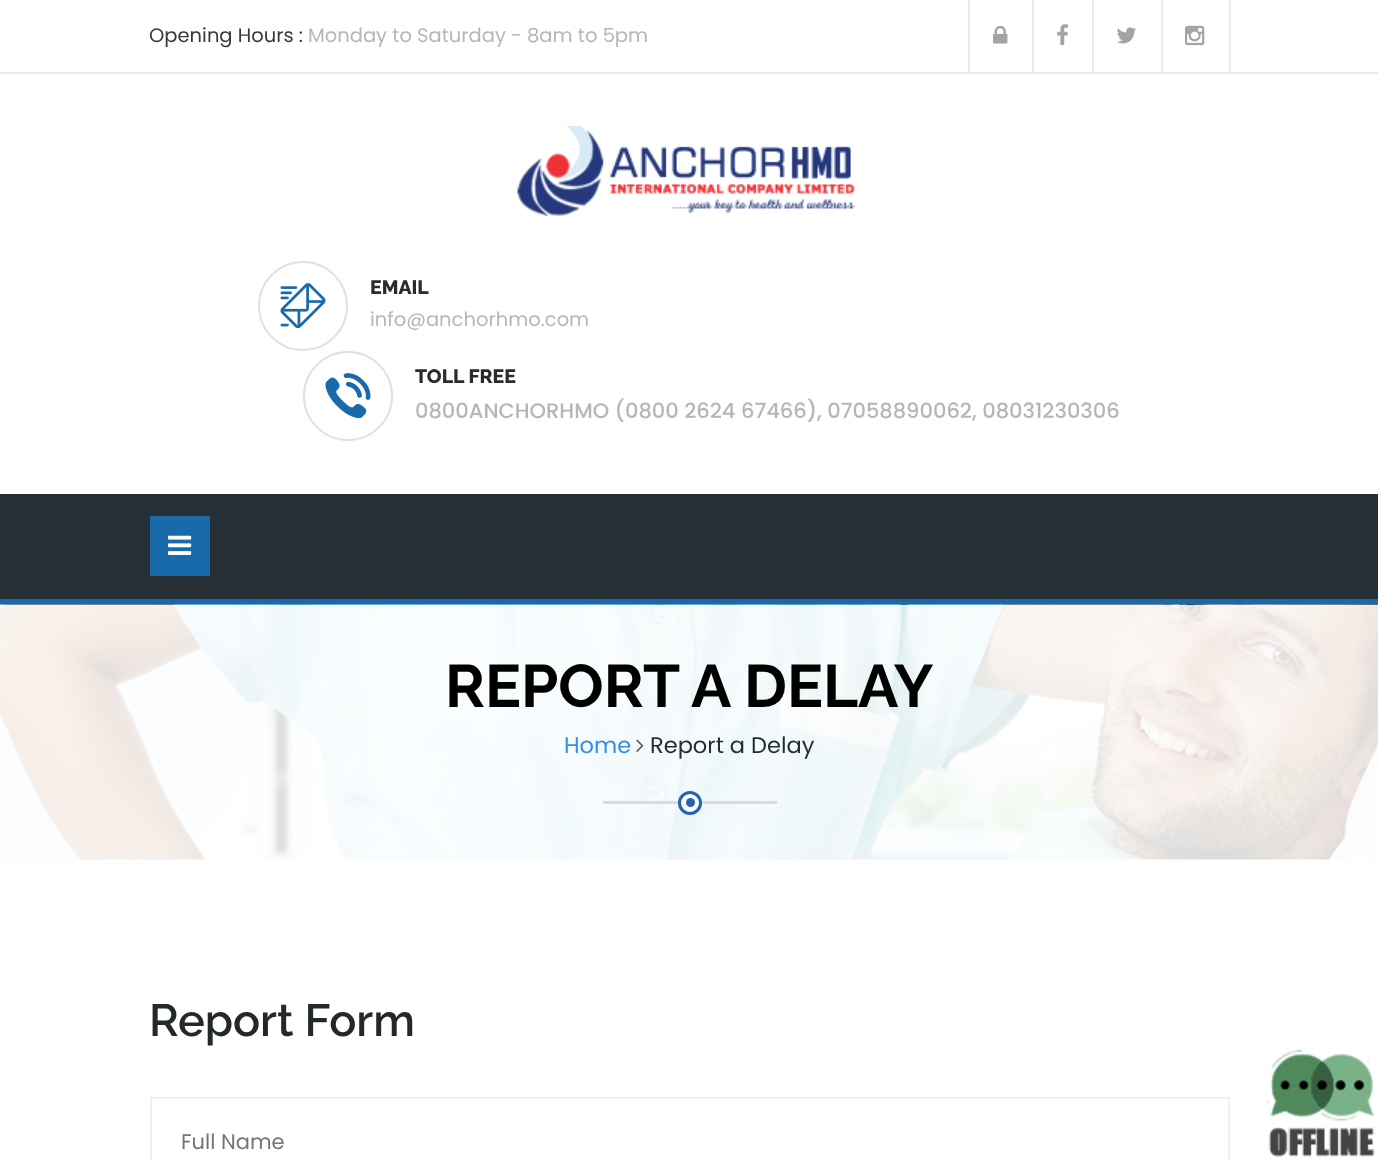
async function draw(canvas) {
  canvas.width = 1378
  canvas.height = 1160
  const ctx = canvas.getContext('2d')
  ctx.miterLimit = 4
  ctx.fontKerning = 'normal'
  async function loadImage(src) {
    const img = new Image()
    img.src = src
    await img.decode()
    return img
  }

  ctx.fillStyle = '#fff'
  ctx.fillRect(0, 0, 1378, 1160)
  ctx.fillStyle = '#eaeaea'
  ctx.fillRect(0, 72, 1378, 2)
  ctx.font = '19.5px Poppins'
  ctx.fillStyle = '#383838'
  ctx.fillText('Opening Hours :', 149, 42)
  ctx.fillStyle = '#b6b6b6'
  ctx.fillText('Monday to Saturday - 8am to 5pm', 308, 42)
  ctx.fillStyle = '#eaeaea'
  ctx.fillRect(1032, 0, 2, 72)
  ctx.fillRect(968, 0, 2, 72)
  ctx.drawImage(await loadImage('image0.png'), 993, 25, 15, 19)
  ctx.fillRect(1092, 0, 2, 72)
  ctx.drawImage(await loadImage('image1.png'), 1057, 24, 11, 22)
  ctx.fillRect(1161, 0, 2, 72)
  ctx.drawImage(await loadImage('image2.png'), 1116, 27, 21, 17)
  ctx.fillRect(1229, 0, 2, 72)
  ctx.drawImage(await loadImage('image3.png'), 1185, 25, 20, 21)
  ctx.drawImage(await loadImage('image4.png'), 517, 126, 339, 90)
  ctx.beginPath()
  ctx.arc(303, 306, 44, 0, 2 * Math.PI)
  ctx.strokeStyle = '#e1e1e1'
  ctx.lineWidth = 2
  ctx.stroke()
  ctx.drawImage(await loadImage('image5.png'), 280, 283, 46, 46)
  ctx.font = '800 19.5px Raleway'
  ctx.fillStyle = '#2b2b2b'
  ctx.fillText('EMAIL', 370, 294)
  ctx.font = '19.5px Poppins'
  ctx.fillStyle = '#b6b6b6'
  ctx.fillText('info@anchorhmo.com', 370, 326)
  ctx.beginPath()
  ctx.arc(348, 396, 44, 0, 2 * Math.PI)
  ctx.stroke()
  ctx.drawImage(await loadImage('image6.png'), 325, 373, 46, 46)
  ctx.font = '800 19.5px Raleway'
  ctx.fillStyle = '#2b2b2b'
  ctx.fillText('TOLL FREE', 415, 383)
  ctx.font = '500 21px Poppins'
  ctx.fillStyle = '#b6b6b6'
  ctx.fillText('0800ANCHORHMO (0800 2624 67466), 07058890062, 08031230306', 415, 418)
  ctx.fillStyle = '#262f36'
  ctx.fillRect(0, 494, 1378, 105)
  ctx.fillStyle = '#186aab'
  ctx.fillRect(0, 599, 1378, 6)
  ctx.fillRect(150, 516, 60, 60)
  ctx.drawImage(await loadImage('image7.png'), 168, 535, 24, 20)
  ctx.drawImage(await loadImage('image8.png'), 0, 604, 1378, 256)
  ctx.font = 'bold 60px Raleway'
  ctx.fillStyle = '#000'
  ctx.fillText('REPORT A DELAY', 445, 707)
  ctx.font = '22.5px Poppins'
  ctx.fillStyle = '#3290e6'
  ctx.fillText('Home', 564, 753)
  ctx.drawImage(await loadImage('image9.png'), 636, 739, 8, 13)
  ctx.fillStyle = '#222e35'
  ctx.fillText('Report a Delay', 650, 753)
  ctx.fillStyle = '#fff'
  ctx.beginPath()
  ctx.arc(690, 803, 10.5, 0, 2 * Math.PI)
  ctx.fill()
  ctx.strokeStyle = '#2562b3'
  ctx.lineWidth = 3
  ctx.stroke()
  ctx.fillStyle = '#dadada'
  ctx.fillRect(603, 801, 75, 3)
  ctx.fillStyle = '#2562b3'
  ctx.beginPath()
  ctx.arc(690.5, 802.5, 4.5, 0, 2 * Math.PI)
  ctx.fill()
  ctx.fillStyle = '#dadada'
  ctx.fillRect(702, 801, 75, 3)
  ctx.font = '600 45px Raleway'
  ctx.fillStyle = '#23282a'
  ctx.fillText('Report Form', 149, 1036)
  ctx.strokeStyle = '#f0f0f0'
  ctx.lineWidth = 2
  ctx.strokeRect(151, 1098, 1078, 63)
  ctx.font = '21px Poppins'
  ctx.fillStyle = '#757575'
  ctx.fillText('Full Name', 181, 1149)
  ctx.drawImage(await loadImage('image10.png'), 1267, 1050, 108, 107)
}

draw(document.querySelector('canvas'))
